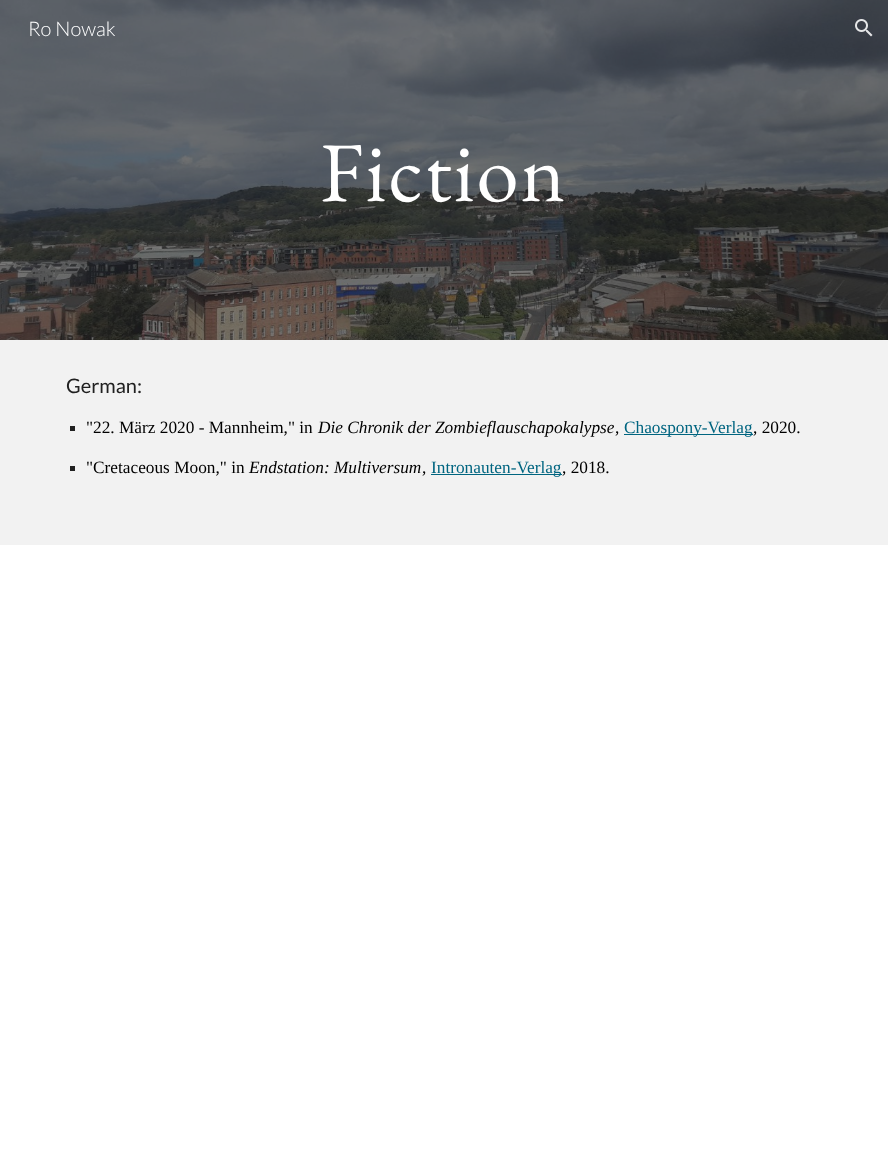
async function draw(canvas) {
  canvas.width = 888
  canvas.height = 1156
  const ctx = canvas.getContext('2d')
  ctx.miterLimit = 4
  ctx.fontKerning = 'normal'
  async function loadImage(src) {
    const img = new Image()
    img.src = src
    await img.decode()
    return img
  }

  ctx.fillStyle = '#fff'
  ctx.fillRect(0, 0, 888, 1156)
  ctx.drawImage(await loadImage('image1.png'), 0, 0, 888, 340)
  ctx.font = '300 20px Lato'
  ctx.fillText('Ro Nowak', 28, 36)
  ctx.drawImage(await loadImage('image0.png'), 855, 19, 18, 18)
  ctx.letterSpacing = '2px'
  ctx.font = '85px EB Garamond'
  ctx.fillText('Fiction', 320, 201)
  ctx.fillStyle = '#f2f2f2'
  ctx.fillRect(0, 340, 888, 205)
  ctx.letterSpacing = '0px'
  ctx.font = '20px Lato'
  ctx.fillStyle = '#212121'
  ctx.fillText('German:', 66, 393)
  ctx.fillRect(70, 426, 5, 5)
  ctx.font = '17.3px Liberation Serif'
  ctx.fillStyle = '#000'
  ctx.fillText('"22. März 2020 - Mannheim," in', 86, 433)
  ctx.font = 'italic 17.3px Liberation Serif'
  ctx.fillText('Die Chronik der Zombieflauschapokalypse', 318, 433)
  ctx.font = '17.3px Liberation Serif'
  ctx.fillText(',', 615, 433)
  ctx.fillStyle = '#006580'
  ctx.fillRect(624, 434, 129, 1)
  ctx.fillText('Chaospony-Verlag', 624, 433)
  ctx.fillStyle = '#000'
  ctx.fillText(', 2020.', 753, 433)
  ctx.fillStyle = '#212121'
  ctx.fillRect(70, 466, 5, 5)
  ctx.fillStyle = '#000'
  ctx.fillText('"Cretaceous Moon," in', 86, 473)
  ctx.font = 'italic 17.3px Liberation Serif'
  ctx.fillText('Endstation: Multiversum', 249, 473)
  ctx.font = '17.3px Liberation Serif'
  ctx.fillText(',', 422, 473)
  ctx.fillStyle = '#006580'
  ctx.fillRect(431, 474, 131, 1)
  ctx.fillText('Intronauten-Verlag', 431, 473)
  ctx.fillStyle = '#000'
  ctx.fillText(', 2018.', 562, 473)
}

draw(document.querySelector('canvas'))
